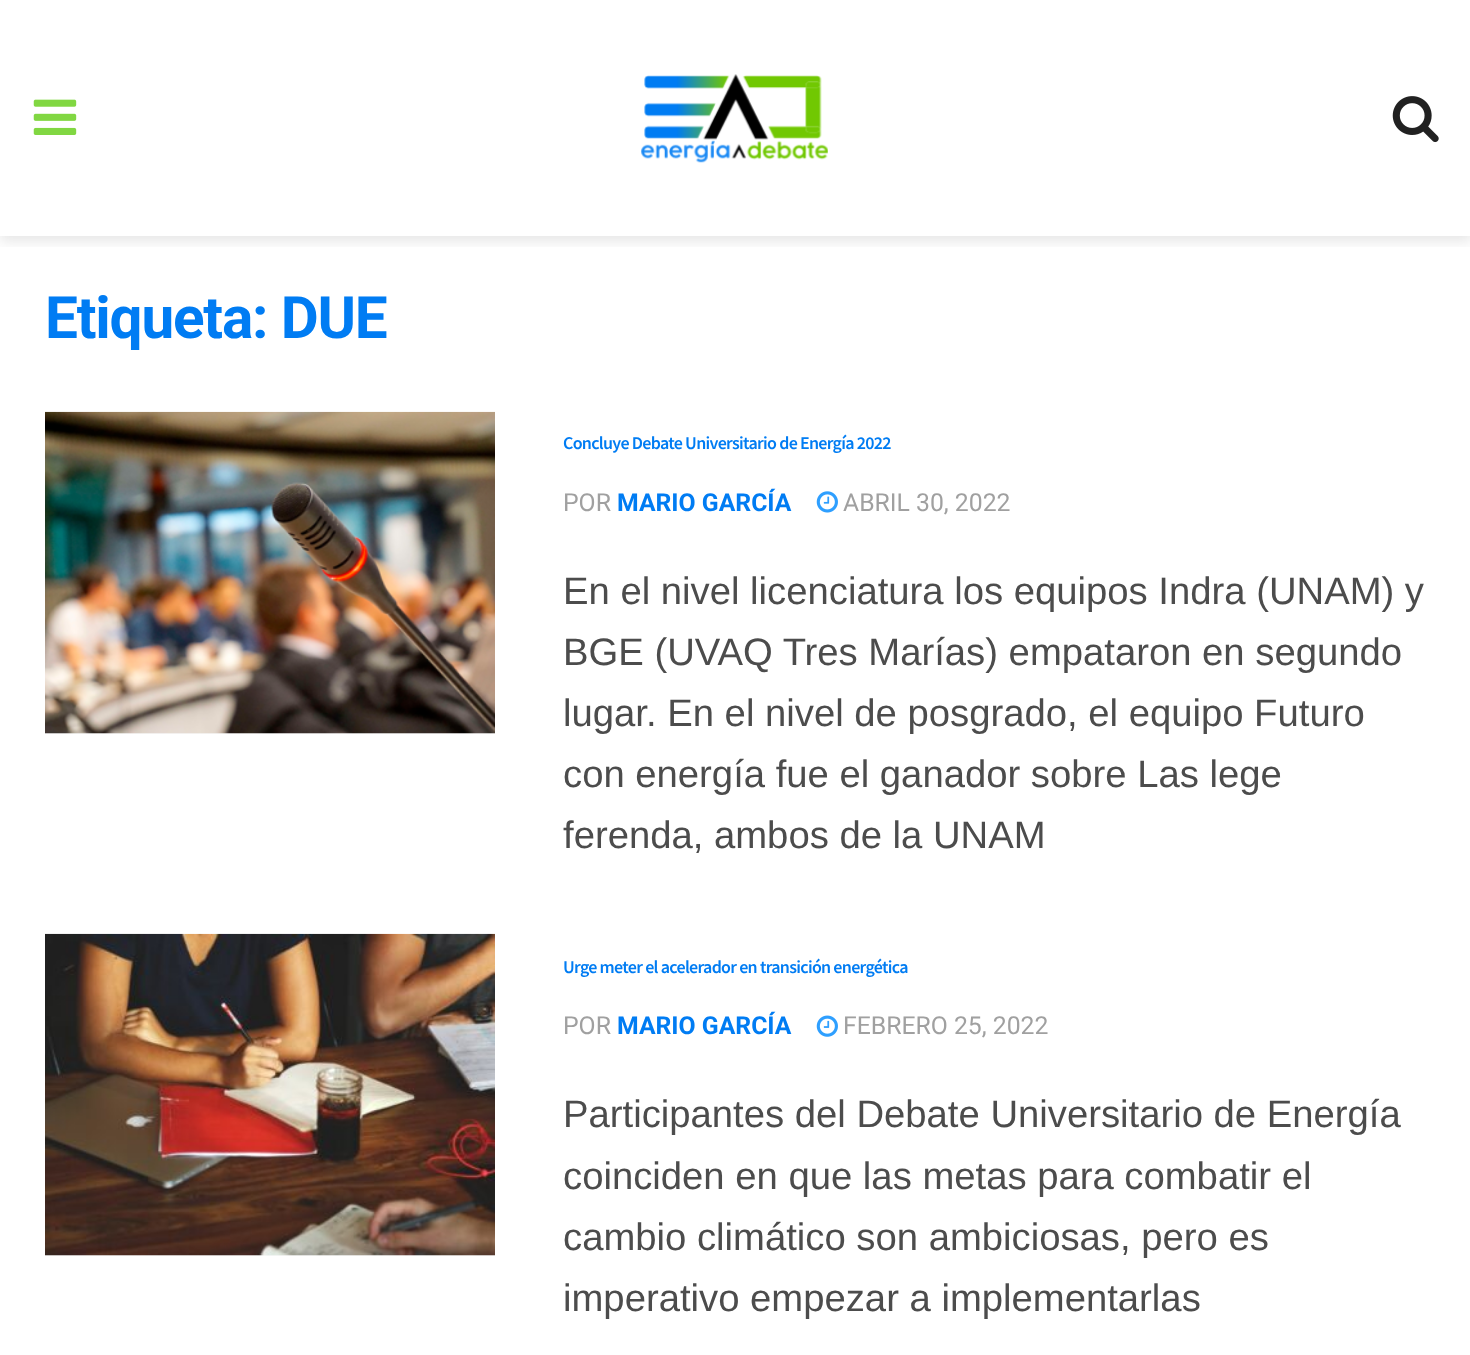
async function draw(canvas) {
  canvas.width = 1470
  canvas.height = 1355
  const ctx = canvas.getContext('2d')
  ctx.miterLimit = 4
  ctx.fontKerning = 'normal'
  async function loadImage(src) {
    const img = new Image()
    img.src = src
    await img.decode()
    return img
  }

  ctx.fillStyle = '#fff'
  ctx.fillRect(0, 0, 1470, 1355)
  ctx.save()
  ctx.beginPath()
  ctx.rect(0, 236, 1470, 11)
  ctx.clip()
  ctx.fillStyle = '#0000001a'
  ctx.filter = 'blur(7px)'
  ctx.beginPath()
  ctx.rect(0, 5, 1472, 236)
  ctx.fill()
  ctx.filter = 'none'
  ctx.restore()
  ctx.drawImage(await loadImage('image0.png'), 33, 99, 44, 36)
  ctx.drawImage(await loadImage('image1.png'), 641, 74, 187, 89)
  ctx.drawImage(await loadImage('image2.png'), 1392, 96, 47, 47)
  ctx.letterSpacing = '-1.2px'
  ctx.font = 'bold 58.5px Roboto'
  ctx.fillStyle = '#007cf3'
  ctx.fillText('Etiqueta: DUE', 45, 338)
  ctx.fillStyle = '#f7f7f7'
  ctx.fillRect(45, 733, 450, 1)
  ctx.drawImage(await loadImage('image3.png'), 45, 411, 450, 323)
  ctx.letterSpacing = '-0.7px'
  ctx.font = '600 18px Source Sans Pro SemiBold'
  ctx.fillStyle = '#007cf3'
  ctx.fillText('Concluye Debate Universitario de Energía 2022', 563, 449)
  ctx.letterSpacing = '0px'
  ctx.font = '24.75px Roboto'
  ctx.fillStyle = '#a0a0a0'
  ctx.fillText('POR', 563, 511)
  ctx.font = 'bold 24.75px Roboto'
  ctx.fillStyle = '#007cf3'
  ctx.fillText('MARIO GARCÍA', 617, 511)
  ctx.drawImage(await loadImage('image4.png'), 816, 491, 22, 22)
  ctx.font = '24.75px Roboto'
  ctx.fillStyle = '#a0a0a0'
  ctx.fillText('ABRIL 30, 2022', 843, 511)
  ctx.font = '38.25px Liberation Sans'
  ctx.fillStyle = '#4c4c4c'
  ctx.fillText('En el nivel licenciatura los equipos Indra (UNAM) y', 563, 604)
  ctx.fillText('BGE (UVAQ Tres Marías) empataron en segundo', 563, 665)
  ctx.fillText('lugar. En el nivel de posgrado, el equipo Futuro', 563, 726)
  ctx.fillText('con energía fue el ganador sobre Las lege', 563, 787)
  ctx.fillText('ferenda, ambos de la UNAM', 563, 848)
  ctx.fillStyle = '#f7f7f7'
  ctx.fillRect(45, 1255, 450, 1)
  ctx.drawImage(await loadImage('image5.png'), 45, 933, 450, 323)
  ctx.letterSpacing = '-0.7px'
  ctx.font = '600 18px Source Sans Pro SemiBold'
  ctx.fillStyle = '#007cf3'
  ctx.fillText('Urge meter el acelerador en transición energética', 563, 973)
  ctx.letterSpacing = '0px'
  ctx.font = '24.75px Roboto'
  ctx.fillStyle = '#a0a0a0'
  ctx.fillText('POR', 563, 1034)
  ctx.font = 'bold 24.75px Roboto'
  ctx.fillStyle = '#007cf3'
  ctx.fillText('MARIO GARCÍA', 617, 1034)
  ctx.drawImage(await loadImage('image6.png'), 816, 1015, 22, 22)
  ctx.font = '24.75px Roboto'
  ctx.fillStyle = '#a0a0a0'
  ctx.fillText('FEBRERO 25, 2022', 843, 1034)
  ctx.font = '38.25px Liberation Sans'
  ctx.fillStyle = '#4c4c4c'
  ctx.fillText('Participantes del Debate Universitario de Energía', 563, 1127)
  ctx.fillText('coinciden en que las metas para combatir el', 563, 1189)
  ctx.fillText('cambio climático son ambiciosas, pero es', 563, 1250)
  ctx.fillText('imperativo empezar a implementarlas', 563, 1311)
}

draw(document.querySelector('canvas'))
